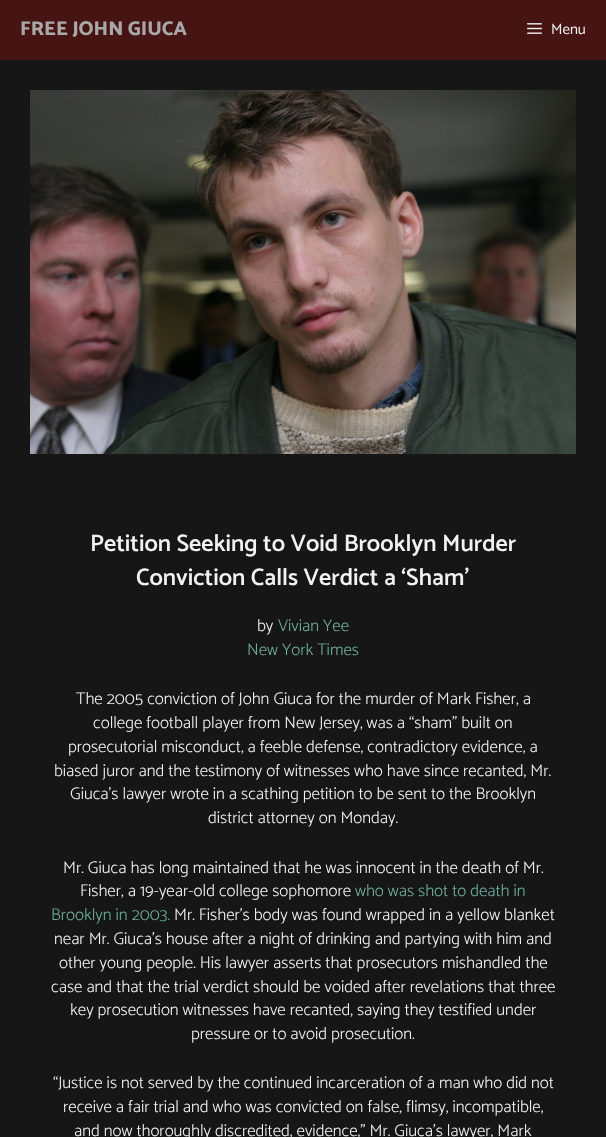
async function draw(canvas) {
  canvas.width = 606
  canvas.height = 1137
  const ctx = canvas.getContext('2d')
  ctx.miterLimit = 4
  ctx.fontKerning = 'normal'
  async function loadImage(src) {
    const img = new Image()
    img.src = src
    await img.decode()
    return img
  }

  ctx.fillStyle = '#161616'
  ctx.fillRect(0, 0, 606, 1137)
  ctx.fillStyle = '#471414'
  ctx.fillRect(0, 0, 606, 60)
  ctx.font = '800 20px Catamaran'
  ctx.fillStyle = '#a8a8a8'
  ctx.fillText('FREE JOHN GIUCA', 20, 35)
  ctx.drawImage(await loadImage('image0.png'), 527, 23, 15, 11)
  ctx.font = '15px Catamaran'
  ctx.fillStyle = '#f2f2f2'
  ctx.fillText('Menu', 551, 34)
  ctx.drawImage(await loadImage('image1.png'), 30, 90, 546, 364)
  ctx.font = '600 24px Catamaran'
  ctx.fillText('Petition Seeking to Void Brooklyn Murder', 90, 551)
  ctx.fillText('Conviction Calls Verdict a ‘Sham’', 136, 585)
  ctx.font = '300 17px Catamaran'
  ctx.fillText('by', 257, 631)
  ctx.fillStyle = '#6dad9a'
  ctx.fillText('Vivian Yee', 278, 631)
  ctx.fillText('New York Times', 247, 655)
  ctx.fillStyle = '#f2f2f2'
  ctx.fillText('The 2005 conviction of John Giuca for the murder of Mark Fisher, a', 76, 704)
  ctx.fillText('college football player from New Jersey, was a “sham” built on', 93, 728)
  ctx.fillText('prosecutorial misconduct, a feeble defense, contradictory evidence, a', 68, 752)
  ctx.fillText('biased juror and the testimony of witnesses who have since recanted, Mr.', 54, 776)
  ctx.fillText('Giuca’s lawyer wrote in a scathing petition to be sent to the Brooklyn', 70, 799)
  ctx.fillText('district attorney on Monday.', 208, 823)
  ctx.fillText('Mr. Giuca has long maintained that he was innocent in the death of Mr.', 63, 873)
  ctx.fillText('Fisher, a 19-year-old college sophomore', 80, 896)
  ctx.fillStyle = '#6dad9a'
  ctx.fillText('who was shot to death in', 355, 896)
  ctx.fillText('Brooklyn in 2003.', 51, 920)
  ctx.fillStyle = '#f2f2f2'
  ctx.fillText('Mr. Fisher’s body was found wrapped in a yellow blanket', 174, 920)
  ctx.fillText('near Mr. Giuca’s house after a night of drinking and partying with him and', 54, 944)
  ctx.fillText('other young people. His lawyer asserts that prosecutors mishandled the', 59, 968)
  ctx.fillText('case and that the trial verdict should be voided after revelations that three', 51, 992)
  ctx.fillText('key prosecution witnesses have recanted, saying they testified under', 70, 1015)
  ctx.fillText('pressure or to avoid prosecution.', 191, 1039)
  ctx.fillText('“Justice is not served by the continued incarceration of a man who did not', 53, 1088)
  ctx.fillText('receive a fair trial and who was convicted on false, flimsy, incompatible,', 63, 1112)
  ctx.fillText('and now thoroughly discredited, evidence,” Mr. Giuca’s lawyer, Mark', 74, 1136)
}

draw(document.querySelector('canvas'))
